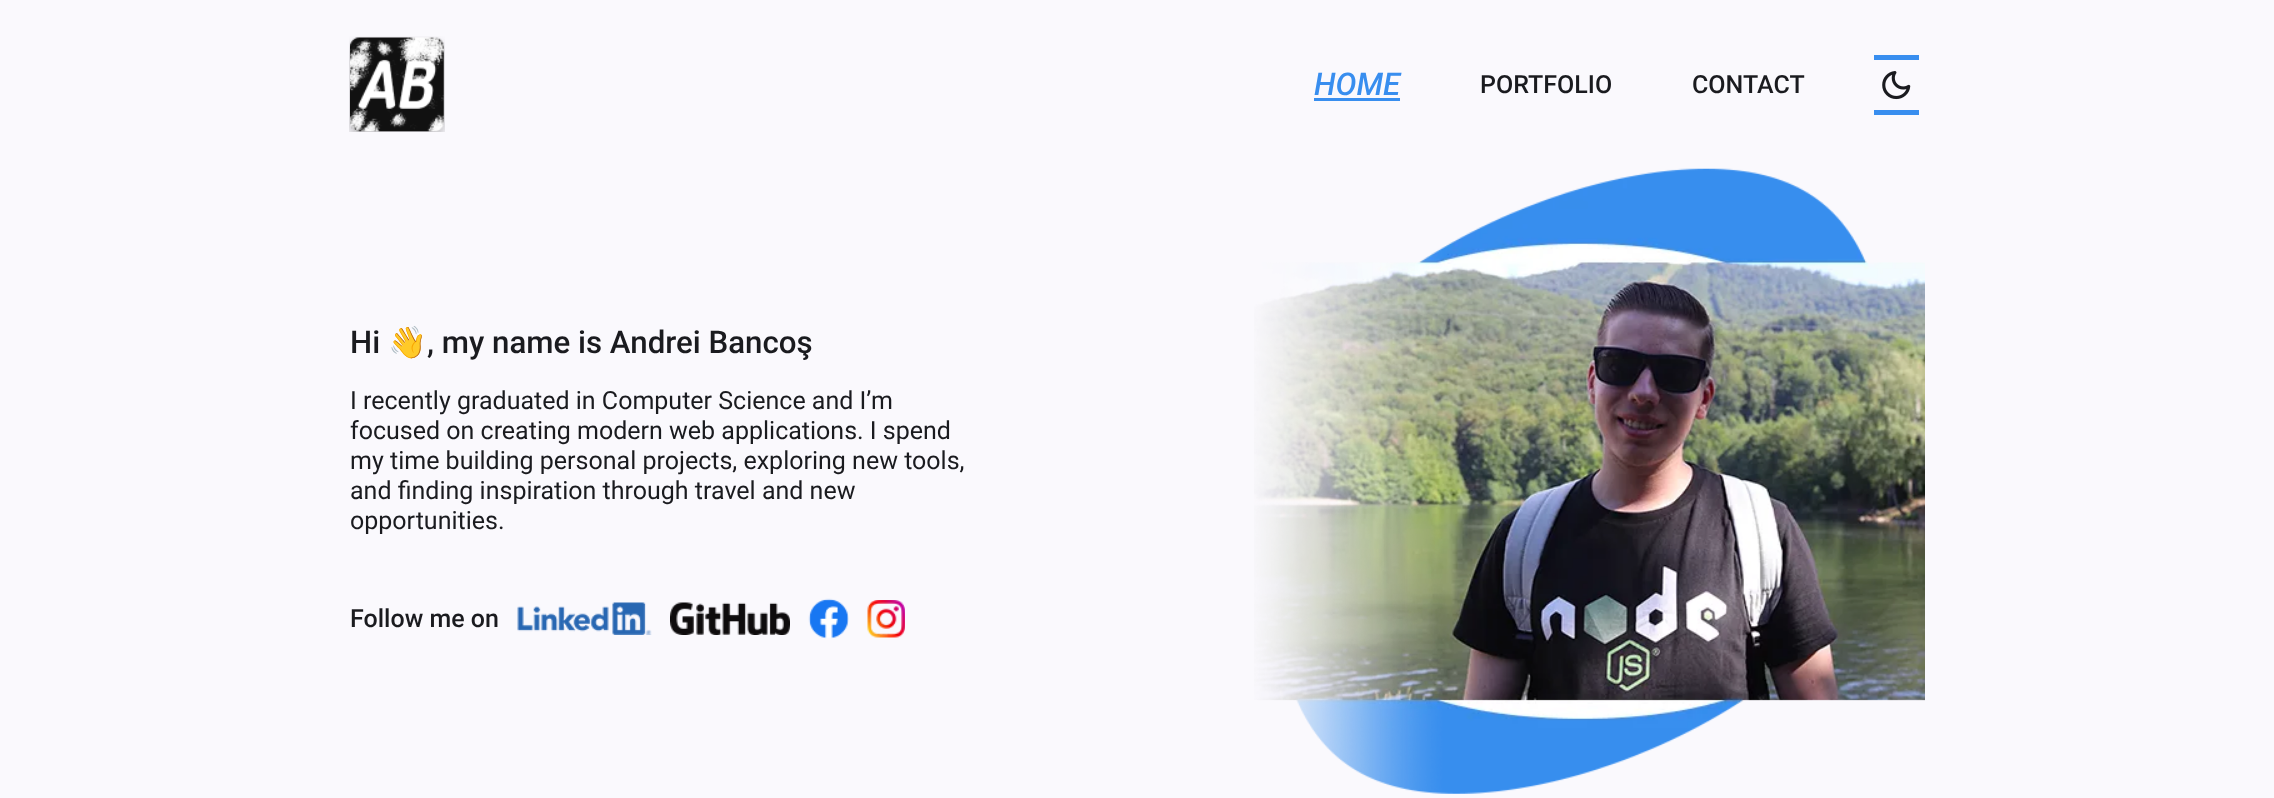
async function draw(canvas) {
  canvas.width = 2274
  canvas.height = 798
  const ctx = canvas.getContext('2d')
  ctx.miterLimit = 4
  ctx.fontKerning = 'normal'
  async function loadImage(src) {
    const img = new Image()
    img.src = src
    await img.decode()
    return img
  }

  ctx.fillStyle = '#faf9fd'
  ctx.fillRect(0, 0, 2274, 798)
  ctx.drawImage(await loadImage('image0.png'), 349, 36, 96, 96)
  ctx.font = 'italic 500 31.25px Roboto'
  ctx.fillStyle = '#388eef'
  ctx.fillText('HOME', 1314, 95)
  ctx.fillRect(1314, 98, 86, 3)
  ctx.font = '500 25px Roboto'
  ctx.fillStyle = '#1a1b1f'
  ctx.fillText('PORTFOLIO', 1480, 93)
  ctx.fillText('CONTACT', 1692, 93)
  ctx.fillStyle = '#388eef'
  ctx.fillRect(1874, 55, 45, 5)
  ctx.fillRect(1874, 110, 45, 5)
  ctx.drawImage(await loadImage('image1.png'), 1882, 71, 29, 29)
  ctx.font = '500 31.25px Roboto'
  ctx.fillStyle = '#1a1b1f'
  ctx.fillText('Hi', 350, 353)
  ctx.font = '31.25px Noto Color Emoji'
  ctx.fillText('👋', 388, 353)
  ctx.font = '500 31.25px Roboto'
  ctx.fillText(', my name is Andrei Bancoş', 427, 353)
  ctx.font = '25px Roboto'
  ctx.fillText('I recently graduated in Computer Science and I’m', 350, 409)
  ctx.fillText('focused on creating modern web applications. I spend', 350, 439)
  ctx.fillText('my time building personal projects, exploring new tools,', 350, 469)
  ctx.fillText('and finding inspiration through travel and new', 350, 499)
  ctx.fillText('opportunities.', 350, 529)
  ctx.font = '500 25px Roboto'
  ctx.fillText('Follow me on', 350, 627)
  ctx.drawImage(await loadImage('image2.png'), 517, 602, 135, 33)
  ctx.drawImage(await loadImage('image3.png'), 670, 602, 120, 33)
  ctx.drawImage(await loadImage('image4.png'), 808, 598, 41, 41)
  ctx.drawImage(await loadImage('image5.png'), 867, 600, 38, 38)
  ctx.drawImage(await loadImage('image6.png'), 1254, 168, 671, 626)
}

draw(document.querySelector('canvas'))
